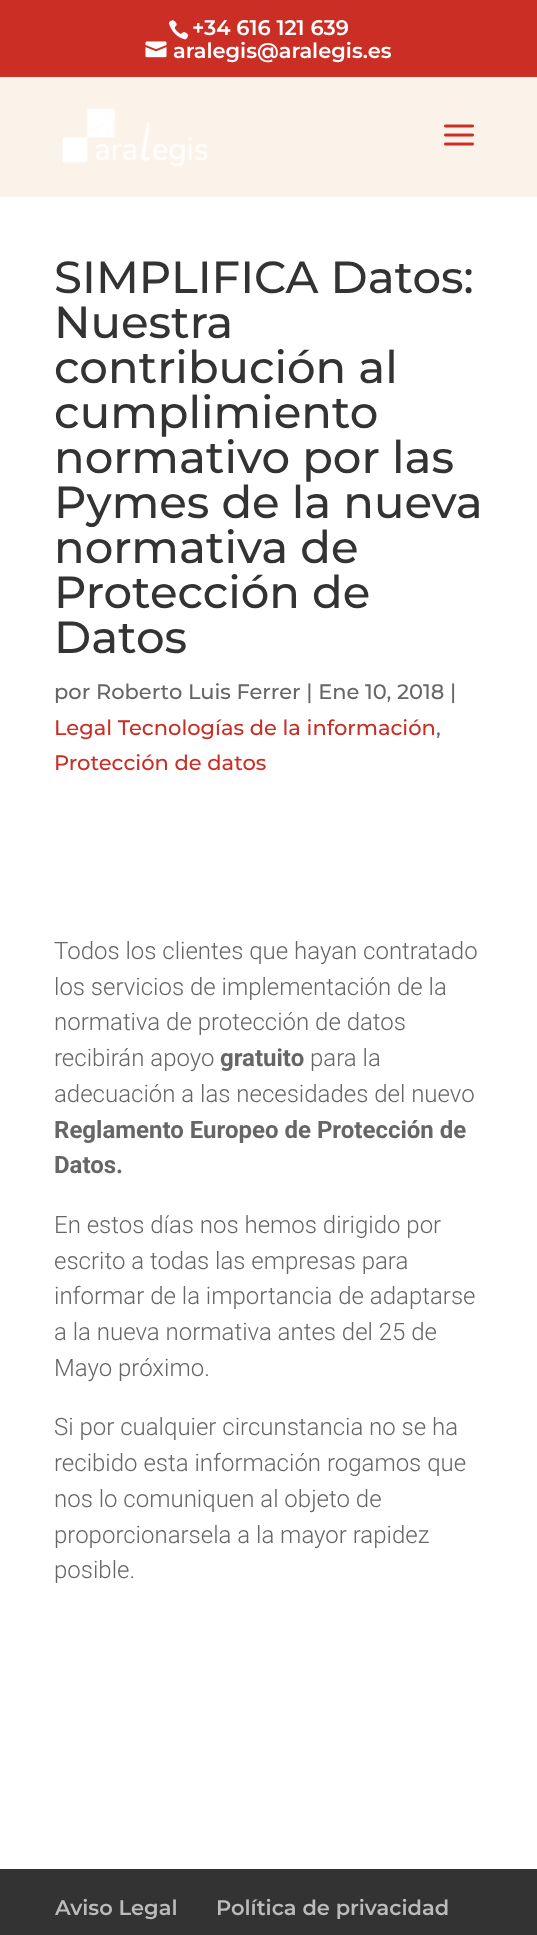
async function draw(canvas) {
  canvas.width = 537
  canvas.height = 1935
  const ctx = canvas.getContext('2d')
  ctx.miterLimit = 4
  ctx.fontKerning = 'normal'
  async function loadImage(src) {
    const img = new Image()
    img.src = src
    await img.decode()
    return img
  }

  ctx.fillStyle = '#fff'
  ctx.fillRect(0, 0, 537, 1935)
  ctx.fillStyle = '#ca2e25'
  ctx.fillRect(0, 0, 537, 77)
  ctx.drawImage(await loadImage('image0.png'), 168, 20, 21, 20)
  ctx.font = '600 21px Montserrat'
  ctx.fillStyle = '#fff'
  ctx.fillText('+34 616 121 639', 192, 35)
  ctx.drawImage(await loadImage('image1.png'), 145, 41, 22, 17)
  ctx.fillText('aralegis@aralegis.es', 173, 58)
  ctx.fillStyle = '#fbf3ea'
  ctx.fillRect(0, 77, 537, 120)
  ctx.drawImage(await loadImage('image2.png'), 62, 108, 146, 59)
  ctx.drawImage(await loadImage('image3.png'), 444, 124, 30, 22)
  ctx.font = '500 45px Montserrat'
  ctx.fillStyle = '#333'
  ctx.fillText('SIMPLIFICA Datos:', 54, 293)
  ctx.fillText('Nuestra', 54, 338)
  ctx.fillText('contribución al', 54, 383)
  ctx.fillText('cumplimiento', 54, 428)
  ctx.fillText('normativo por las', 54, 473)
  ctx.fillText('Pymes de la nueva', 54, 518)
  ctx.fillText('normativa de', 54, 563)
  ctx.fillText('Protección de', 54, 608)
  ctx.fillText('Datos', 54, 653)
  ctx.font = '500 21px Montserrat'
  ctx.fillStyle = '#666'
  ctx.fillText('por Roberto Luis Ferrer | Ene 10, 2018 |', 54, 699)
  ctx.fillStyle = '#ca2e25'
  ctx.fillText('Legal Tecnologías de la información', 54, 735)
  ctx.fillStyle = '#666'
  ctx.fillText(',', 436, 735)
  ctx.fillStyle = '#ca2e25'
  ctx.fillText('Protección de datos', 54, 770)
  ctx.font = '300 24px Roboto'
  ctx.fillStyle = '#666'
  ctx.fillText('Todos los clientes que hayan contratado', 54, 959)
  ctx.fillText('los servicios de implementación de la', 54, 995)
  ctx.fillText('normativa de protección de datos', 54, 1030)
  ctx.fillText('recibirán apoyo', 54, 1066)
  ctx.font = 'bold 24px Roboto'
  ctx.fillText('gratuito', 220, 1066)
  ctx.font = '300 24px Roboto'
  ctx.fillText('para la', 310, 1066)
  ctx.fillText('adecuación a las necesidades del nuevo', 54, 1102)
  ctx.font = 'bold 24px Roboto'
  ctx.fillText('Reglamento Europeo de Protección de', 54, 1138)
  ctx.fillText('Datos.', 54, 1173)
  ctx.font = '300 24px Roboto'
  ctx.fillText('En estos días nos hemos dirigido por', 54, 1233)
  ctx.fillText('escrito a todas las empresas para', 54, 1269)
  ctx.fillText('informar de la importancia de adaptarse', 54, 1304)
  ctx.fillText('a la nueva normativa antes del 25 de', 54, 1340)
  ctx.fillText('Mayo próximo.', 54, 1376)
  ctx.fillText('Si por cualquier circunstancia no se ha', 54, 1435)
  ctx.fillText('recibido esta información rogamos que', 54, 1471)
  ctx.fillText('nos lo comuniquen al objeto de', 54, 1507)
  ctx.fillText('proporcionarsela a la mayor rapidez', 54, 1543)
  ctx.fillText('posible.', 54, 1578)
  ctx.fillStyle = '#333'
  ctx.fillRect(0, 1869, 537, 66)
  ctx.font = '600 21px Montserrat'
  ctx.fillStyle = '#bbb'
  ctx.fillText('Aviso Legal', 55, 1915)
  ctx.fillText('Política de privacidad', 216, 1915)
}

draw(document.querySelector('canvas'))
